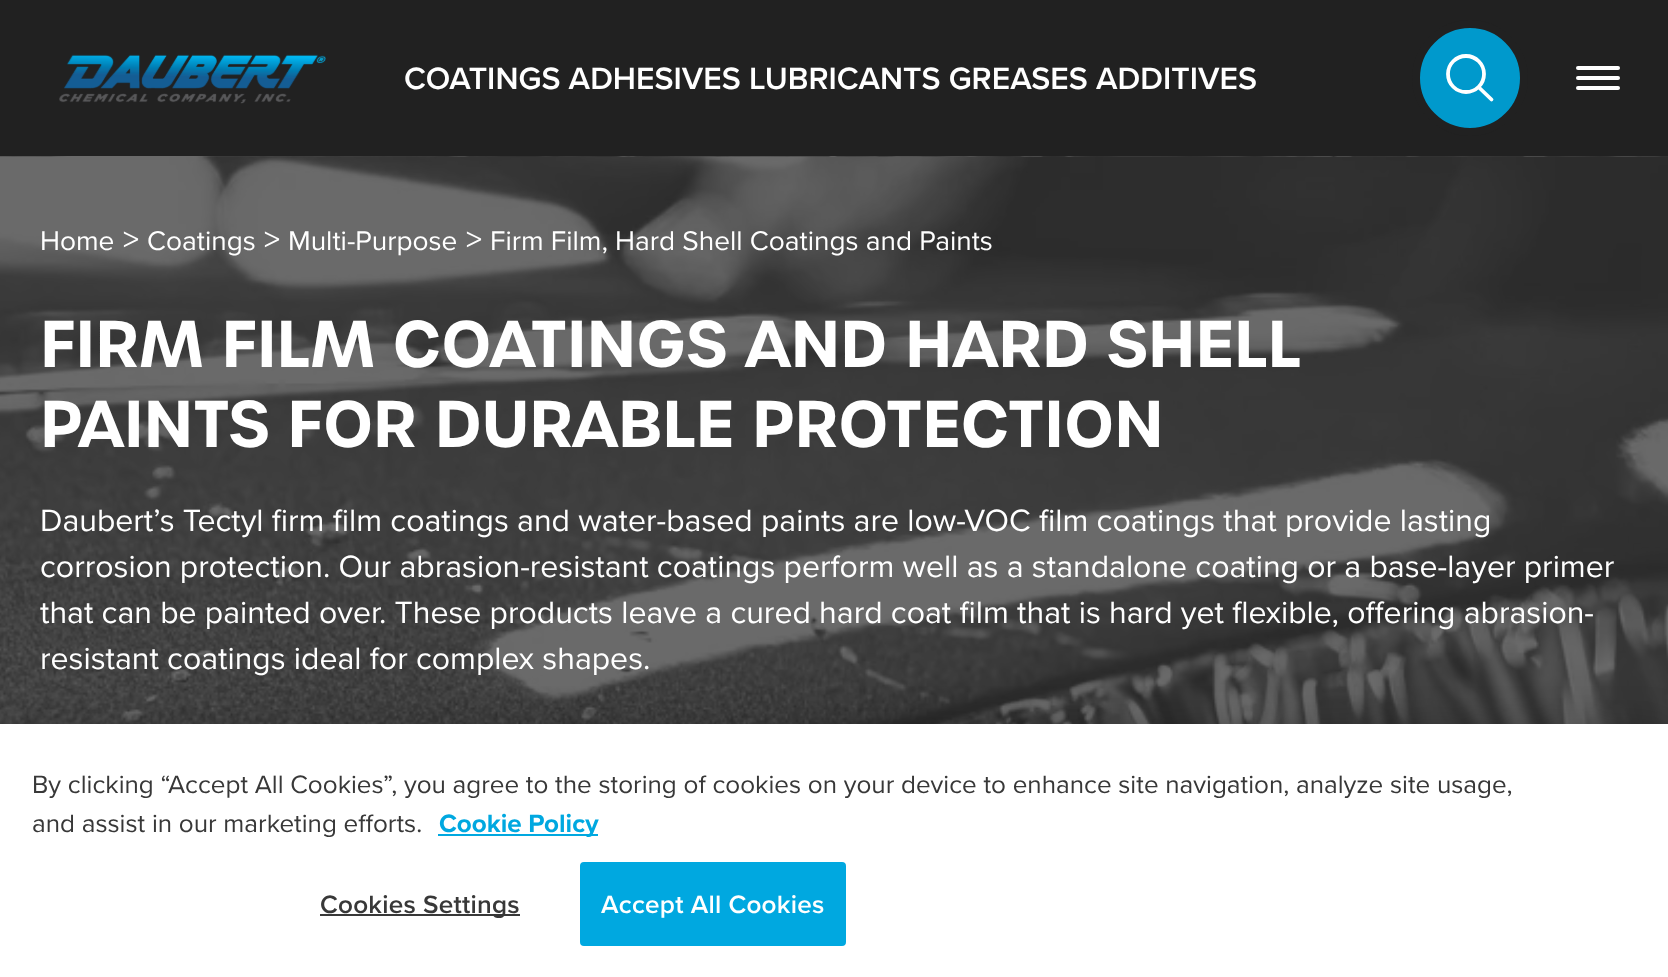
async function draw(canvas) {
  canvas.width = 1668
  canvas.height = 977
  const ctx = canvas.getContext('2d')
  ctx.miterLimit = 4
  ctx.fontKerning = 'normal'
  async function loadImage(src) {
    const img = new Image()
    img.src = src
    await img.decode()
    return img
  }

  ctx.fillStyle = '#393939'
  ctx.fillRect(0, 0, 1668, 977)
  ctx.fillStyle = '#212121'
  ctx.fillRect(0, 0, 1668, 156)
  ctx.drawImage(await loadImage('image0.png'), 59, 54, 267, 50)
  ctx.font = '600 32px Proxima Nova'
  ctx.fillStyle = '#fff'
  ctx.fillText('COATINGS ADHESIVES LUBRICANTS GREASES ADDITIVES', 404, 89)
  ctx.fillStyle = '#09c'
  ctx.beginPath()
  ctx.arc(1470, 78, 54, 0, 2 * Math.PI)
  ctx.fill()
  ctx.strokeStyle = '#212121'
  ctx.lineWidth = 8
  ctx.stroke()
  ctx.beginPath()
  ctx.moveTo(1484, 74)
  ctx.bezierCurveTo(1484, 84, 1476, 92, 1466, 92)
  ctx.bezierCurveTo(1456, 92, 1448, 84, 1448, 74)
  ctx.bezierCurveTo(1448, 64, 1456, 56, 1466, 56)
  ctx.bezierCurveTo(1476, 56, 1484, 64, 1484, 74)
  ctx.closePath()
  ctx.moveTo(1491.5, 99.5)
  ctx.lineTo(1479.5, 88)
  ctx.strokeStyle = '#fff'
  ctx.lineWidth = 3.8
  ctx.lineCap = 'round'
  ctx.lineJoin = 'round'
  ctx.stroke()
  ctx.fillStyle = '#fff'
  ctx.beginPath()
  ctx.roundRect(1576, 66, 44, 4, 2)
  ctx.fill()
  ctx.beginPath()
  ctx.roundRect(1576, 76, 44, 4, 2)
  ctx.fill()
  ctx.beginPath()
  ctx.roundRect(1576, 86, 44, 4, 2)
  ctx.fill()
  ctx.drawImage(await loadImage('image1.png'), 0, 156, 1668, 568)
  ctx.font = '28px Proxima Nova'
  ctx.fillText('Home', 40, 250)
  ctx.font = '32px Proxima Nova'
  ctx.fillText('>', 123, 250)
  ctx.font = '28px Proxima Nova'
  ctx.fillText('Coatings', 147, 250)
  ctx.font = '32px Proxima Nova'
  ctx.fillText('>', 264, 250)
  ctx.font = '28px Proxima Nova'
  ctx.fillText('Multi-Purpose', 288, 250)
  ctx.font = '32px Proxima Nova'
  ctx.fillText('>', 466, 250)
  ctx.font = '28px Proxima Nova'
  ctx.fillText('Firm Film, Hard Shell Coatings and Paints', 490, 250)
  ctx.font = '600 64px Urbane'
  ctx.fillText('FIRM FILM COATINGS AND HARD SHELL', 40, 367)
  ctx.fillText('PAINTS FOR DURABLE PROTECTION', 40, 447)
  ctx.font = '32px Proxima Nova'
  ctx.fillText('Daubert’s Tectyl firm film coatings and water-based paints are low-VOC film coatings that provide lasting', 40, 531)
  ctx.fillText('corrosion protection. Our abrasion-resistant coatings perform well as a standalone coating or a base-layer primer', 40, 577)
  ctx.fillText('that can be painted over. These products leave a cured hard coat film that is hard yet flexible, offering abrasion-', 40, 623)
  ctx.fillText('resistant coatings ideal for complex shapes.', 40, 669)
  ctx.fillStyle = '#00000033'
  ctx.filter = 'blur(18px)'
  ctx.beginPath()
  ctx.rect(0, 724, 1668, 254)
  ctx.fill()
  ctx.filter = 'none'
  ctx.fillStyle = '#fff'
  ctx.fillRect(0, 724, 1668, 253)
  ctx.font = '26.02px Proxima Nova'
  ctx.fillStyle = '#383838'
  ctx.fillText('By clicking “Accept All Cookies”, you agree to the storing of cookies on your device to enhance site navigation, analyze site usage,', 32, 793)
  ctx.fillText('and assist in our marketing efforts.', 32, 832)
  ctx.fillStyle = '#00a8e0'
  ctx.fillRect(438, 834, 160, 2)
  ctx.font = 'bold 26.02px Proxima Nova'
  ctx.fillText('Cookie Policy', 439, 832)
  ctx.fillStyle = '#383838'
  ctx.fillRect(320, 914, 200, 2)
  ctx.letterSpacing = '0.25px'
  ctx.font = '600 26.02px Proxima Nova'
  ctx.fillText('Cookies Settings', 320, 913)
  ctx.fillStyle = '#00a8e0'
  ctx.beginPath()
  ctx.roundRect(581, 863, 264, 82, 3)
  ctx.fill()
  ctx.strokeStyle = '#00a8e0'
  ctx.lineWidth = 2
  ctx.lineJoin = 'miter'
  ctx.stroke()
  ctx.fillStyle = '#fff'
  ctx.fillText('Accept All Cookies', 601, 913)
}

draw(document.querySelector('canvas'))
